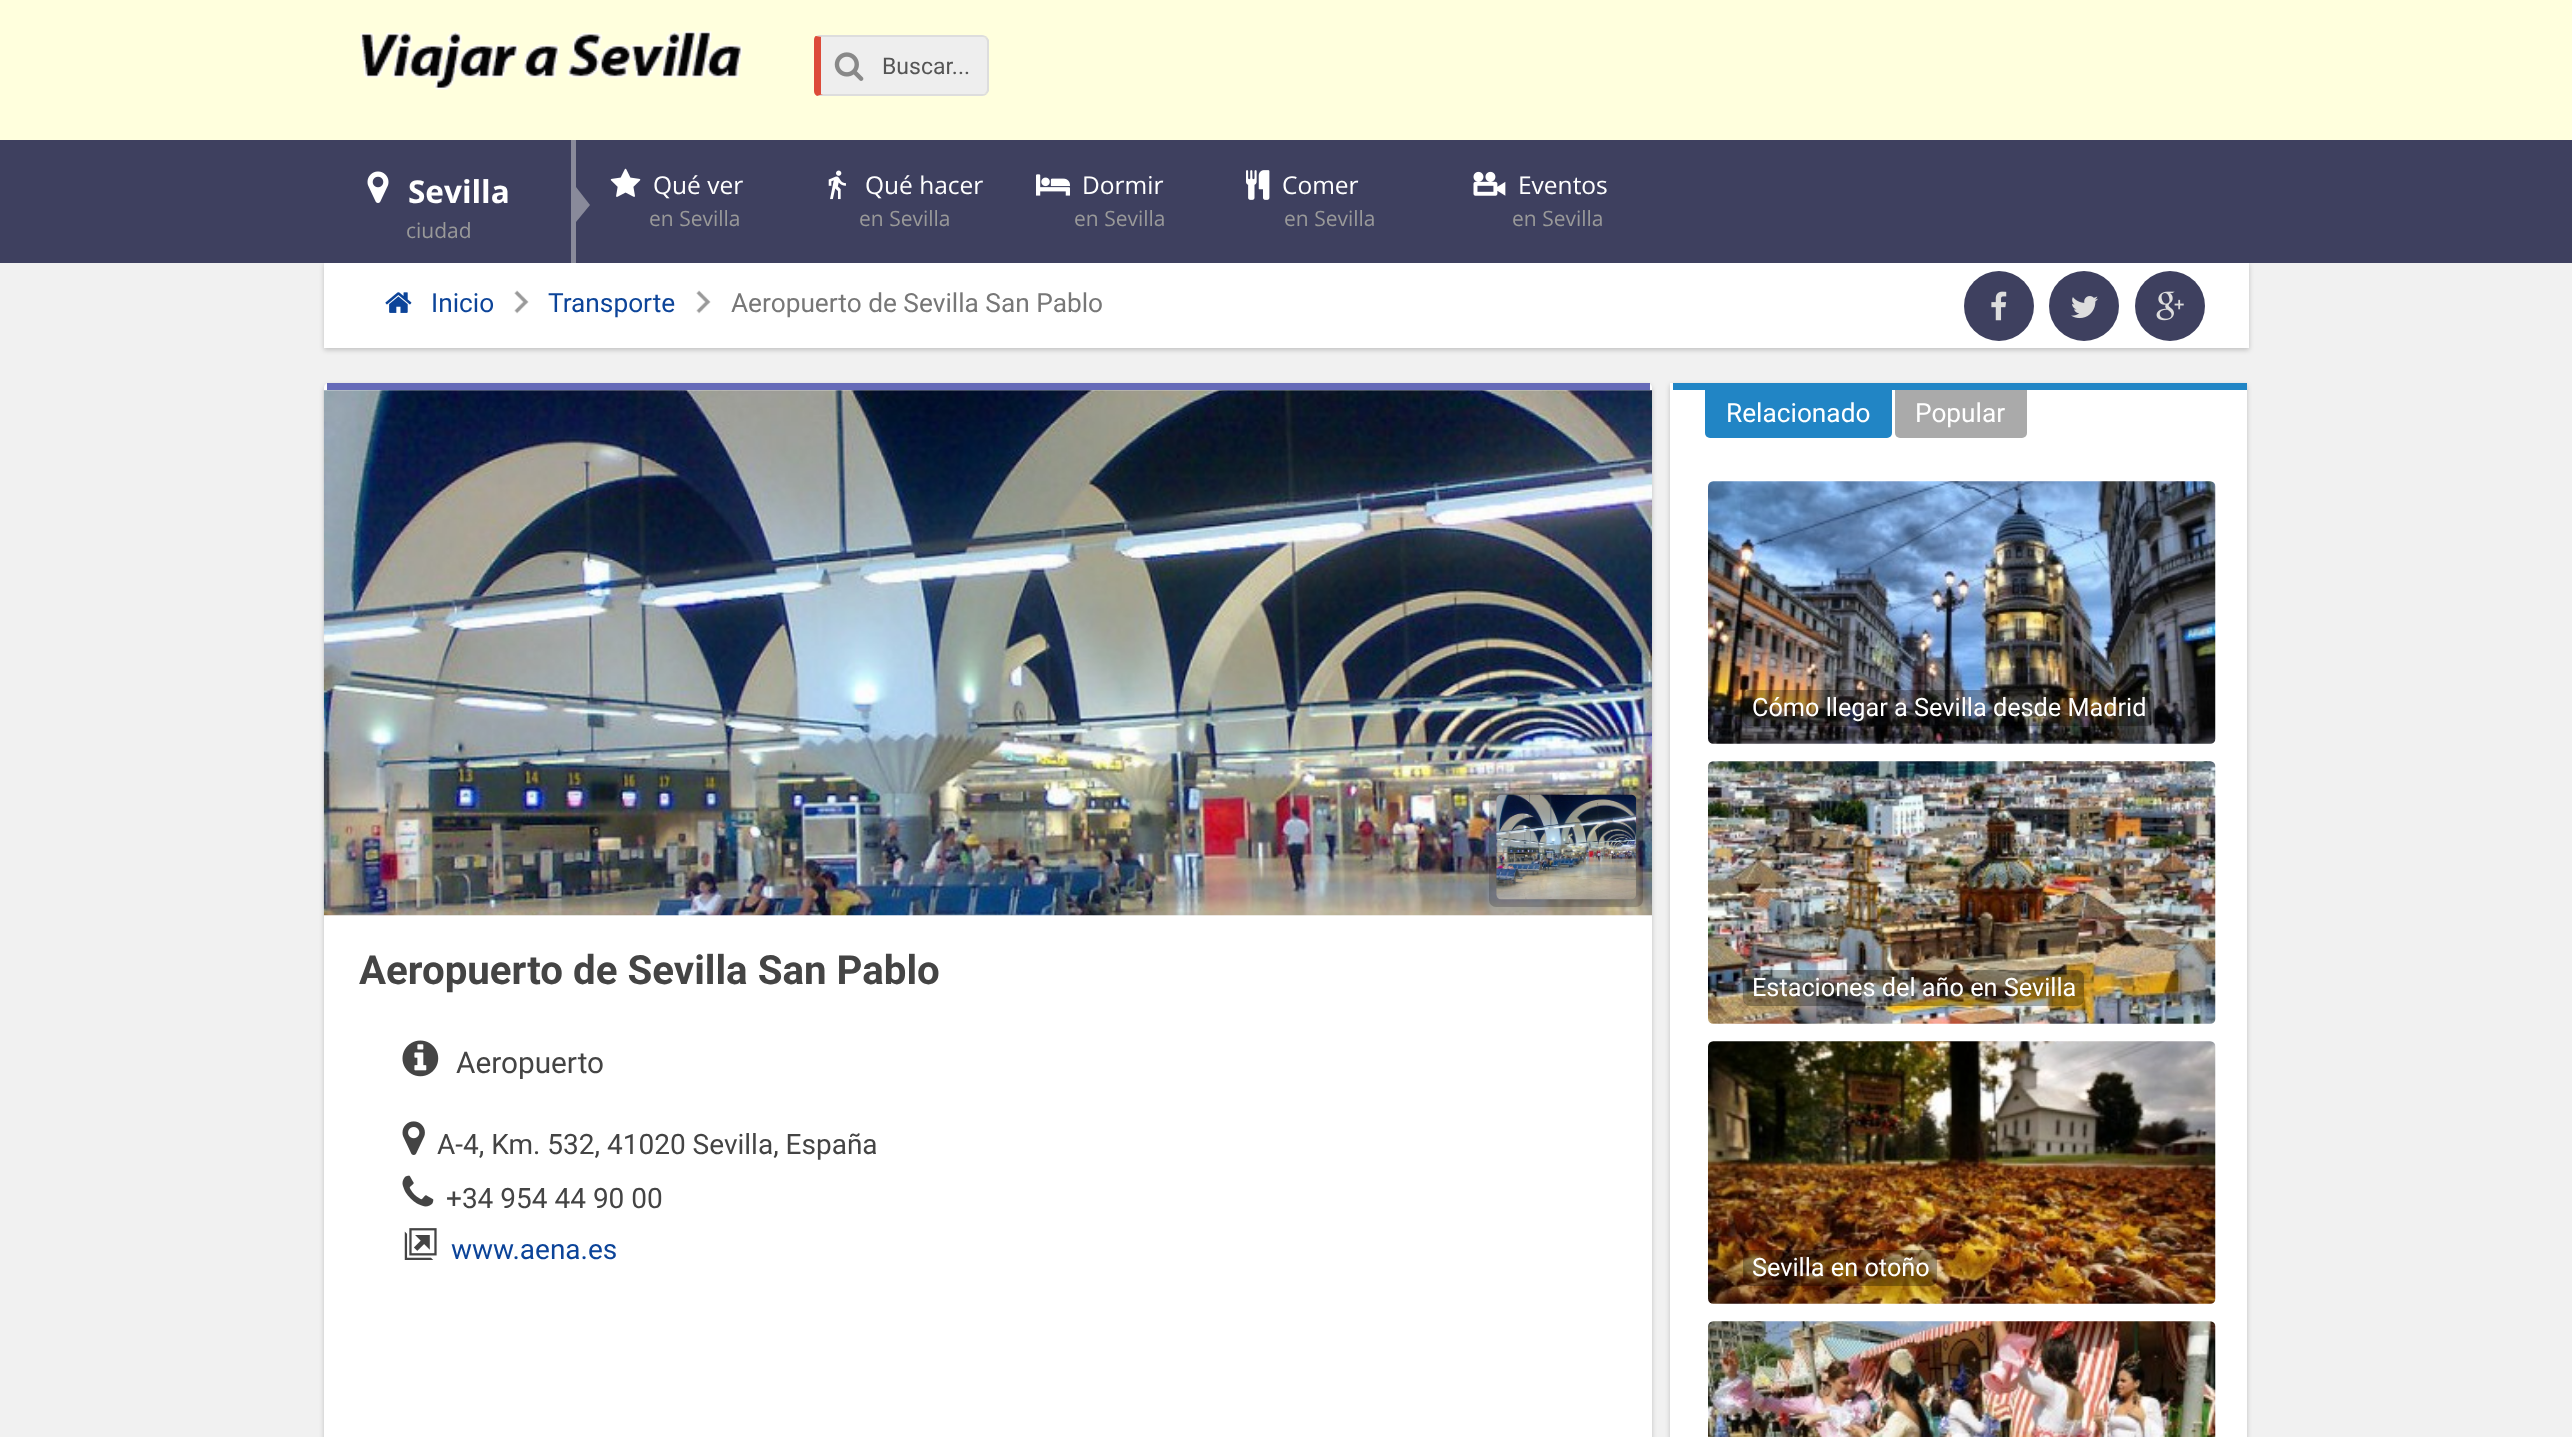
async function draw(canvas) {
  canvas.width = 2572
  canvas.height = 1437
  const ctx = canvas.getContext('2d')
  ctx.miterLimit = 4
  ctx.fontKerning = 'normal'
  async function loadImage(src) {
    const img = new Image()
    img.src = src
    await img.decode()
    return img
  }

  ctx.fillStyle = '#f1f1f1'
  ctx.fillRect(0, 0, 2572, 1437)
  ctx.fillStyle = '#ffd'
  ctx.fillRect(0, 0, 2572, 140)
  ctx.drawImage(await loadImage('image0.png'), 360, 31, 383, 59)
  ctx.fillStyle = '#eee'
  ctx.beginPath()
  ctx.moveTo(821, 37)
  ctx.lineTo(982, 37)
  ctx.bezierCurveTo(985, 37, 987, 39, 987, 42)
  ctx.lineTo(987, 89)
  ctx.bezierCurveTo(987, 92, 985, 94, 982, 94)
  ctx.lineTo(821, 94)
  ctx.closePath()
  ctx.fill()
  ctx.drawImage(await loadImage('image1.png'), 834, 52, 30, 29)
  ctx.fillStyle = '#ddd'
  ctx.beginPath()
  ctx.moveTo(819, 35)
  ctx.lineTo(816, 36)
  ctx.lineTo(822, 37)
  ctx.lineTo(982, 37)
  ctx.bezierCurveTo(983, 37, 985, 37, 985, 38)
  ctx.lineTo(987, 37)
  ctx.bezierCurveTo(986, 36, 984, 35, 982, 35)
  ctx.closePath()
  ctx.fill()
  ctx.beginPath()
  ctx.moveTo(989, 91)
  ctx.lineTo(987, 94)
  ctx.lineTo(985, 93)
  ctx.bezierCurveTo(986, 92, 987, 91, 987, 89)
  ctx.lineTo(987, 42)
  ctx.bezierCurveTo(987, 40, 986, 39, 985, 38)
  ctx.lineTo(987, 37)
  ctx.lineTo(989, 40)
  ctx.closePath()
  ctx.fill()
  ctx.beginPath()
  ctx.moveTo(987, 94)
  ctx.bezierCurveTo(986, 95, 984, 96, 982, 96)
  ctx.lineTo(819, 96)
  ctx.lineTo(817, 96)
  ctx.lineTo(823, 94)
  ctx.lineTo(982, 94)
  ctx.bezierCurveTo(983, 94, 985, 94, 985, 93)
  ctx.closePath()
  ctx.fill()
  ctx.fillStyle = '#dd4b39'
  ctx.beginPath()
  ctx.moveTo(821, 37)
  ctx.lineTo(822, 37)
  ctx.lineTo(816, 36)
  ctx.bezierCurveTo(815, 36, 814, 38, 814, 40)
  ctx.lineTo(814, 91)
  ctx.bezierCurveTo(814, 93, 815, 95, 817, 96)
  ctx.lineTo(823, 94)
  ctx.lineTo(821, 94)
  ctx.closePath()
  ctx.fill()
  ctx.font = '23px Roboto'
  ctx.fillStyle = '#555'
  ctx.fillText('Buscar...', 882, 74)
  ctx.fillStyle = '#00000033'
  ctx.filter = 'blur(2.5px)'
  ctx.beginPath()
  ctx.rect(324, 264, 1925, 86)
  ctx.fill()
  ctx.filter = 'none'
  ctx.fillStyle = '#3e405f'
  ctx.fillRect(0, 140, 2572, 123)
  ctx.fillStyle = '#898a9a'
  ctx.fillRect(571, 140, 5, 123)
  ctx.drawImage(await loadImage('image2.png'), 367, 171, 22, 32)
  ctx.font = 'bold 31.5px Open Sans'
  ctx.fillStyle = '#fff'
  ctx.fillText('Sevilla', 408, 203)
  ctx.font = '21px Open Sans'
  ctx.fillStyle = '#999'
  ctx.fillText('ciudad', 406, 238)
  ctx.fillStyle = '#898a9a'
  ctx.beginPath()
  ctx.moveTo(576, 222)
  ctx.lineTo(576, 187)
  ctx.lineTo(590, 205)
  ctx.closePath()
  ctx.fill()
  ctx.drawImage(await loadImage('image3.png'), 610, 168, 31, 29)
  ctx.font = '24.5px Open Sans'
  ctx.fillStyle = '#fff'
  ctx.fillText('Qué ver', 653, 194)
  ctx.font = '21px Open Sans'
  ctx.fillStyle = '#999'
  ctx.fillText('en Sevilla', 649, 226)
  ctx.drawImage(await loadImage('image4.png'), 828, 170, 18, 30)
  ctx.font = '24.5px Open Sans'
  ctx.fillStyle = '#fff'
  ctx.fillText('Qué hacer', 865, 194)
  ctx.font = '21px Open Sans'
  ctx.fillStyle = '#999'
  ctx.fillText('en Sevilla', 859, 226)
  ctx.drawImage(await loadImage('image5.png'), 1036, 174, 34, 22)
  ctx.font = '24.5px Open Sans'
  ctx.fillStyle = '#fff'
  ctx.fillText('Dormir', 1082, 194)
  ctx.font = '21px Open Sans'
  ctx.fillStyle = '#999'
  ctx.fillText('en Sevilla', 1074, 226)
  ctx.drawImage(await loadImage('image6.png'), 1246, 170, 24, 30)
  ctx.font = '24.5px Open Sans'
  ctx.fillStyle = '#fff'
  ctx.fillText('Comer', 1282, 194)
  ctx.font = '21px Open Sans'
  ctx.fillStyle = '#999'
  ctx.fillText('en Sevilla', 1284, 226)
  ctx.drawImage(await loadImage('image7.png'), 1473, 171, 33, 25)
  ctx.font = '24.5px Open Sans'
  ctx.fillStyle = '#fff'
  ctx.fillText('Eventos', 1518, 194)
  ctx.font = '21px Open Sans'
  ctx.fillStyle = '#999'
  ctx.fillText('en Sevilla', 1512, 226)
  ctx.fillStyle = '#fff'
  ctx.fillRect(324, 263, 1925, 85)
  ctx.drawImage(await loadImage('image8.png'), 385, 292, 27, 21)
  ctx.font = '26.25px Roboto'
  ctx.fillStyle = '#0c4499'
  ctx.fillText('Inicio', 431, 312)
  ctx.drawImage(await loadImage('image9.png'), 514, 290, 15, 24)
  ctx.fillText('Transporte', 548, 312)
  ctx.drawImage(await loadImage('image9.png'), 696, 290, 15, 24)
  ctx.fillStyle = '#777'
  ctx.fillText('Aeropuerto de Sevilla San Pablo', 731, 312)
  ctx.fillStyle = '#3e405f'
  ctx.beginPath()
  ctx.arc(1999, 306, 35, 0, 2 * Math.PI)
  ctx.fill()
  ctx.drawImage(await loadImage('image10.png'), 1991, 291, 16, 30)
  ctx.beginPath()
  ctx.arc(2084, 306, 35, 0, 2 * Math.PI)
  ctx.fill()
  ctx.drawImage(await loadImage('image11.png'), 2071, 296, 27, 23)
  ctx.beginPath()
  ctx.arc(2170, 306, 35, 0, 2 * Math.PI)
  ctx.fill()
  ctx.drawImage(await loadImage('image12.png'), 2156, 291, 28, 30)
  ctx.fillStyle = '#00000033'
  ctx.filter = 'blur(2.5px)'
  ctx.beginPath()
  ctx.roundRect(324, 385, 1328, 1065, 5)
  ctx.fill()
  ctx.filter = 'none'
  ctx.fillStyle = '#fff'
  ctx.beginPath()
  ctx.moveTo(329, 383)
  ctx.lineTo(1647, 383)
  ctx.bezierCurveTo(1650, 383, 1652, 385, 1652, 388)
  ctx.lineTo(1652, 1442)
  ctx.lineTo(324, 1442)
  ctx.lineTo(324, 388)
  ctx.bezierCurveTo(324, 385, 326, 383, 329, 383)
  ctx.closePath()
  ctx.fill()
  ctx.fillStyle = '#3238a0bf'
  ctx.fillRect(327, 383, 1323, 7)
  ctx.drawImage(await loadImage('image13.png'), 323, 390, 1329, 526)
  ctx.fillStyle = '#00000033'
  ctx.beginPath()
  ctx.roundRect(1489, 788, 154, 119, 7)
  ctx.fill()
  ctx.drawImage(await loadImage('image14.png'), 1496, 794, 141, 106)
  ctx.font = 'bold 40.25px Roboto'
  ctx.fillStyle = '#444'
  ctx.fillText('Aeropuerto de Sevilla San Pablo', 359, 984)
  ctx.drawImage(await loadImage('image15.png'), 402, 1040, 37, 37)
  ctx.font = '29.75px Roboto'
  ctx.fillText('Aeropuerto', 456, 1073)
  ctx.drawImage(await loadImage('image16.png'), 402, 1121, 23, 34)
  ctx.font = '28px Roboto'
  ctx.fillText('A-4, Km. 532, 41020 Sevilla, España', 437, 1154)
  ctx.drawImage(await loadImage('image17.png'), 402, 1175, 32, 32)
  ctx.fillText('+34 954 44 90 00', 446, 1208)
  ctx.drawImage(await loadImage('image18.png'), 404, 1228, 33, 32)
  ctx.fillStyle = '#0c4499'
  ctx.fillText('www.aena.es', 451, 1259)
  ctx.fillStyle = '#00000033'
  ctx.filter = 'blur(2.5px)'
  ctx.beginPath()
  ctx.rect(1670, 385, 577, 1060)
  ctx.fill()
  ctx.filter = 'none'
  ctx.fillStyle = '#fff'
  ctx.fillRect(1670, 383, 577, 1054)
  ctx.fillStyle = '#2185c5'
  ctx.fillRect(1673, 383, 574, 7)
  ctx.beginPath()
  ctx.roundRect(1705, 390, 187, 48, [0, 0, 5, 5])
  ctx.fill()
  ctx.font = '26.25px Roboto'
  ctx.fillStyle = '#fff'
  ctx.fillText('Relacionado', 1726, 422)
  ctx.fillStyle = '#aaa'
  ctx.beginPath()
  ctx.roundRect(1895, 390, 132, 48, [0, 0, 5, 5])
  ctx.fill()
  ctx.fillStyle = '#fff'
  ctx.fillText('Popular', 1915, 422)
  ctx.drawImage(await loadImage('image19.png'), 1708, 481, 508, 263)
  ctx.fillStyle = '#0000004d'
  ctx.beginPath()
  ctx.roundRect(1743, 690, 411, 36, 7)
  ctx.fill()
  ctx.font = '25.25px Roboto'
  ctx.fillStyle = '#fff'
  ctx.fillText('Cómo llegar a Sevilla desde Madrid', 1752, 716)
  ctx.drawImage(await loadImage('image20.png'), 1708, 761, 508, 263)
  ctx.fillStyle = '#0000004d'
  ctx.beginPath()
  ctx.roundRect(1743, 970, 341, 36, 7)
  ctx.fill()
  ctx.fillStyle = '#fff'
  ctx.fillText('Estaciones del año en Sevilla', 1752, 996)
  ctx.drawImage(await loadImage('image21.png'), 1708, 1041, 508, 263)
  ctx.fillStyle = '#0000004d'
  ctx.beginPath()
  ctx.roundRect(1743, 1250, 194, 36, 7)
  ctx.fill()
  ctx.fillStyle = '#fff'
  ctx.fillText('Sevilla en otoño', 1752, 1276)
  ctx.drawImage(await loadImage('image22.png'), 1708, 1321, 508, 116)
}

draw(document.querySelector('canvas'))
